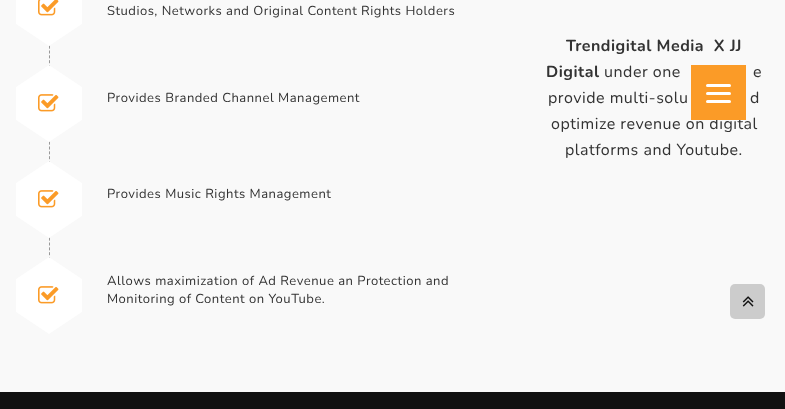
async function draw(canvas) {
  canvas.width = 785
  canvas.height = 409
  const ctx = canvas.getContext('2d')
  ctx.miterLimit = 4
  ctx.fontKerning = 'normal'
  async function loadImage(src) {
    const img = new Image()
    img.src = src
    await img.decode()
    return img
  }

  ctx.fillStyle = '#111'
  ctx.fillRect(0, 0, 785, 409)
  ctx.fillStyle = '#f9f9f9'
  ctx.fillRect(0, 0, 785, 392)
  ctx.beginPath()
  ctx.moveTo(49.5, 2)
  ctx.lineTo(49.5, 68)
  ctx.strokeStyle = '#999'
  ctx.setLineDash([3, 1.85])
  ctx.stroke()
  ctx.fillStyle = '#fff'
  ctx.fillRect(16, 0, 66, 24)
  ctx.drawImage(await loadImage('image0.png'), 38, 0, 21, 16)
  ctx.beginPath()
  ctx.moveTo(16, 24)
  ctx.lineTo(82, 24)
  ctx.lineTo(49, 46)
  ctx.closePath()
  ctx.fill()
  ctx.letterSpacing = '0.5px'
  ctx.font = '13px Nunito'
  ctx.fillStyle = '#333'
  ctx.fillText('Studios, Networks and Original Content Rights Holders', 107, 15)
  ctx.beginPath()
  ctx.moveTo(49.5, 98)
  ctx.lineTo(49.5, 164)
  ctx.stroke()
  ctx.fillStyle = '#fff'
  ctx.fillRect(16, 87, 66, 33)
  ctx.beginPath()
  ctx.moveTo(82, 87)
  ctx.lineTo(16, 87)
  ctx.lineTo(49, 65)
  ctx.closePath()
  ctx.fill()
  ctx.drawImage(await loadImage('image1.png'), 38, 94, 21, 18)
  ctx.beginPath()
  ctx.moveTo(16, 120)
  ctx.lineTo(82, 120)
  ctx.lineTo(49, 142)
  ctx.closePath()
  ctx.fill()
  ctx.fillStyle = '#333'
  ctx.fillText('Provides Branded Channel Management', 107, 102)
  ctx.beginPath()
  ctx.moveTo(49.5, 194)
  ctx.lineTo(49.5, 260)
  ctx.stroke()
  ctx.fillStyle = '#fff'
  ctx.fillRect(16, 183, 66, 33)
  ctx.beginPath()
  ctx.moveTo(82, 183)
  ctx.lineTo(16, 183)
  ctx.lineTo(49, 161)
  ctx.closePath()
  ctx.fill()
  ctx.drawImage(await loadImage('image1.png'), 38, 190, 21, 18)
  ctx.beginPath()
  ctx.moveTo(16, 216)
  ctx.lineTo(82, 216)
  ctx.lineTo(49, 238)
  ctx.closePath()
  ctx.fill()
  ctx.fillStyle = '#333'
  ctx.fillText('Provides Music Rights Management', 107, 198)
  ctx.fillStyle = '#fff'
  ctx.fillRect(16, 279, 66, 33)
  ctx.beginPath()
  ctx.moveTo(82, 279)
  ctx.lineTo(16, 279)
  ctx.lineTo(49, 257)
  ctx.closePath()
  ctx.fill()
  ctx.drawImage(await loadImage('image1.png'), 38, 286, 21, 18)
  ctx.beginPath()
  ctx.moveTo(16, 312)
  ctx.lineTo(82, 312)
  ctx.lineTo(49, 334)
  ctx.closePath()
  ctx.fill()
  ctx.fillStyle = '#333'
  ctx.fillText('Allows maximization of Ad Revenue an Protection and', 107, 285)
  ctx.fillText('Monitoring of Content on YouTube.', 107, 303)
  ctx.font = 'bold 16px Nunito'
  ctx.fillText('Trendigital Media  X JJ', 566, 51)
  ctx.fillText('Digital', 546, 77)
  ctx.font = '16px Nunito'
  ctx.fillText('under one', 604, 77)
  ctx.fillText('e', 753, 77)
  ctx.fillText('provide multi-solu', 548, 103)
  ctx.fillText('d', 750, 103)
  ctx.fillText('optimize revenue on digital', 551, 129)
  ctx.fillText('platforms and Youtube.', 565, 155)
  ctx.fillStyle = '#fb9b27'
  ctx.fillRect(691, 65, 55, 55)
  ctx.fillStyle = '#fff'
  ctx.beginPath()
  ctx.roundRect(706, 92, 25, 3, 1.5)
  ctx.fill()
  ctx.beginPath()
  ctx.roundRect(706, 84, 25, 3, 1.5)
  ctx.fill()
  ctx.beginPath()
  ctx.roundRect(706, 100, 25, 3, 1.5)
  ctx.fill()
  ctx.fillStyle = '#ccc'
  ctx.beginPath()
  ctx.roundRect(730, 284, 35, 35, 5)
  ctx.fill()
  ctx.drawImage(await loadImage('image2.png'), 742, 296, 12, 11)
}

draw(document.querySelector('canvas'))
